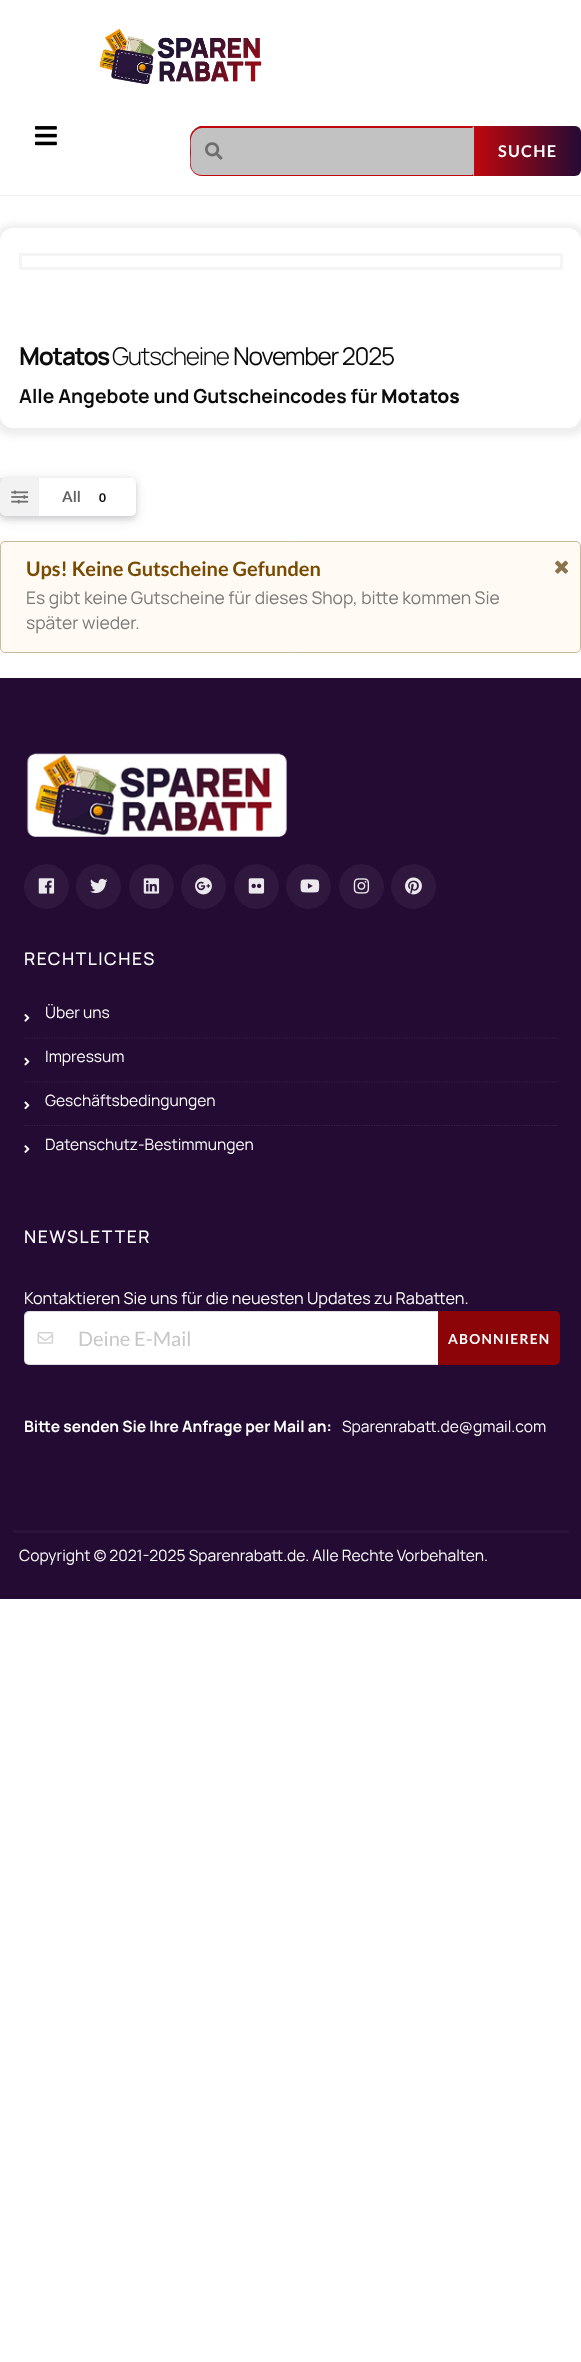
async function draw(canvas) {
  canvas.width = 581
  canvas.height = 2362
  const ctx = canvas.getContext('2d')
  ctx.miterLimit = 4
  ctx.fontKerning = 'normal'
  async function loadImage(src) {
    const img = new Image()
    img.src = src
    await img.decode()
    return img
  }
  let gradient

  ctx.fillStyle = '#fff'
  ctx.fillRect(0, 0, 581, 2362)
  ctx.fillStyle = '#eee'
  ctx.fillRect(0, 195, 581, 1)
  ctx.drawImage(await loadImage('image0.png'), 100, 28, 162, 56)
  ctx.drawImage(await loadImage('image1.png'), 35, 126, 22, 20)
  ctx.fillStyle = '#c2c2c2'
  ctx.beginPath()
  ctx.roundRect(190, 126, 284, 50, [13, 0, 0, 13])
  ctx.fill()
  ctx.fillStyle = '#bf080e'
  ctx.beginPath()
  ctx.moveTo(202, 128)
  ctx.bezierCurveTo(199, 128, 197, 129, 195, 131)
  ctx.lineTo(194, 130)
  ctx.bezierCurveTo(195, 128, 198, 127, 200, 126)
  ctx.lineTo(474, 126)
  ctx.lineTo(472, 128)
  ctx.closePath()
  ctx.fill()
  ctx.beginPath()
  ctx.moveTo(474, 176)
  ctx.lineTo(202, 176)
  ctx.bezierCurveTo(199, 176, 196, 175, 194, 173)
  ctx.lineTo(194, 172)
  ctx.bezierCurveTo(196, 174, 199, 175, 202, 175)
  ctx.lineTo(472, 175)
  ctx.lineTo(472, 174)
  ctx.closePath()
  ctx.fill()
  ctx.beginPath()
  ctx.moveTo(190, 139)
  ctx.lineTo(190, 164)
  ctx.bezierCurveTo(190, 167, 191, 170, 194, 173)
  ctx.lineTo(194, 172)
  ctx.bezierCurveTo(189, 167, 191, 158, 191, 152)
  ctx.bezierCurveTo(191, 145, 189, 136, 195, 131)
  ctx.lineTo(194, 130)
  ctx.bezierCurveTo(191, 132, 190, 136, 190, 139)
  ctx.closePath()
  ctx.fill()
  ctx.drawImage(await loadImage('image2.png'), 205, 142, 18, 18)
  gradient = ctx.createLinearGradient(474, 151, 581, 151)
  gradient.addColorStop(0, '#bf080e')
  gradient.addColorStop(1, '#240b34')
  ctx.fillStyle = gradient
  ctx.beginPath()
  ctx.roundRect(474, 126, 107, 50, [0, 6, 6, 0])
  ctx.fill()
  ctx.letterSpacing = '1.25px'
  ctx.font = 'bold 16.25px Lato'
  ctx.fillStyle = '#fff'
  ctx.fillText('SUCHE', 498, 157)
  ctx.fillStyle = '#46464617'
  ctx.filter = 'blur(3px)'
  ctx.beginPath()
  ctx.roundRect(-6, 224, 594, 212, 19)
  ctx.fill()
  ctx.filter = 'none'
  ctx.fillStyle = '#fff'
  ctx.beginPath()
  ctx.roundRect(0, 228, 581, 200, 13)
  ctx.fill()
  ctx.strokeStyle = '#f5f5f5'
  ctx.lineWidth = 3
  ctx.strokeRect(20.5, 254.5, 541, 14)
  ctx.letterSpacing = '-1.25px'
  ctx.font = 'bold 24.5px Manrope'
  ctx.fillStyle = '#0c0c0c'
  ctx.fillText('Motatos', 19, 365)
  ctx.font = '300 24.5px Manrope'
  ctx.fillText('Gutscheine', 112, 365)
  ctx.font = '24.5px Manrope'
  ctx.fillText('November 2025', 233, 365)
  ctx.letterSpacing = '0px'
  ctx.font = 'bold 19.25px Manrope'
  ctx.fillText('Alle Angebote und Gutscheincodes für', 19, 403)
  ctx.font = '800 19.25px Manrope'
  ctx.fillText('Motatos', 381, 403)
  ctx.fillStyle = '#22242626'
  ctx.filter = 'blur(6px)'
  ctx.beginPath()
  ctx.roundRect(0, 480, 136, 39, 5)
  ctx.fill()
  ctx.filter = 'none'
  ctx.fillStyle = '#2224261f'
  ctx.filter = 'blur(2.5px)'
  ctx.beginPath()
  ctx.roundRect(0, 480, 136, 39, 5)
  ctx.fill()
  ctx.filter = 'none'
  ctx.fillStyle = '#fff'
  ctx.beginPath()
  ctx.roundRect(0, 478, 136, 38, 5)
  ctx.fill()
  ctx.fillStyle = '#0000000d'
  ctx.fillRect(0, 478, 39, 38)
  ctx.drawImage(await loadImage('image3.png'), 11, 490, 18, 14)
  ctx.font = 'bold 15px Lato'
  ctx.fillStyle = '#636363'
  ctx.fillText('All', 62, 502)
  ctx.font = 'bold 12px Lato'
  ctx.fillStyle = '#000'
  ctx.fillText('0', 99, 502)
  ctx.fillStyle = '#fffaf3'
  ctx.beginPath()
  ctx.roundRect(0.5, 541.5, 580, 111, 4.5)
  ctx.fill()
  ctx.strokeStyle = '#c9ba9b'
  ctx.lineWidth = 1
  ctx.stroke()
  ctx.font = 'bold 20px Lato'
  ctx.fillStyle = '#794b02'
  ctx.fillText('Ups! Keine Gutscheine Gefunden', 26, 576)
  ctx.drawImage(await loadImage('image4.png'), 555, 560, 14, 14)
  ctx.font = '17.5px Manrope'
  ctx.fillStyle = '#7a7a79'
  ctx.fillText('Es gibt keine Gutscheine für dieses Shop, bitte kommen Sie', 26, 604)
  ctx.fillText('später wieder.', 26, 629)
  ctx.fillStyle = '#240b34'
  ctx.fillRect(0, 678, 581, 921)
  ctx.drawImage(await loadImage('image5.png'), 26, 753, 261, 84)
  ctx.fillStyle = '#2f173e'
  ctx.beginPath()
  ctx.arc(46.5, 886.5, 22.5, 0, 2 * Math.PI)
  ctx.fill()
  ctx.drawImage(await loadImage('image6.png'), 38, 878, 17, 16)
  ctx.beginPath()
  ctx.arc(98.5, 886.5, 22.5, 0, 2 * Math.PI)
  ctx.fill()
  ctx.drawImage(await loadImage('image7.png'), 90, 878, 18, 16)
  ctx.beginPath()
  ctx.arc(151.5, 886.5, 22.5, 0, 2 * Math.PI)
  ctx.fill()
  ctx.drawImage(await loadImage('image8.png'), 143, 878, 17, 16)
  ctx.beginPath()
  ctx.arc(203.5, 886.5, 22.5, 0, 2 * Math.PI)
  ctx.fill()
  ctx.drawImage(await loadImage('image9.png'), 195, 877, 17, 18)
  ctx.beginPath()
  ctx.arc(256.5, 886.5, 22.5, 0, 2 * Math.PI)
  ctx.fill()
  ctx.drawImage(await loadImage('image10.png'), 248, 878, 17, 16)
  ctx.beginPath()
  ctx.arc(308.5, 886.5, 22.5, 0, 2 * Math.PI)
  ctx.fill()
  ctx.drawImage(await loadImage('image11.png'), 300, 879, 20, 14)
  ctx.beginPath()
  ctx.arc(361.5, 886.5, 22.5, 0, 2 * Math.PI)
  ctx.fill()
  ctx.drawImage(await loadImage('image12.png'), 353, 878, 17, 16)
  ctx.beginPath()
  ctx.arc(413.5, 886.5, 22.5, 0, 2 * Math.PI)
  ctx.fill()
  ctx.drawImage(await loadImage('image13.png'), 405, 877, 17, 18)
  ctx.letterSpacing = '1.5px'
  ctx.font = '500 17.5px Manrope'
  ctx.fillStyle = '#fff'
  ctx.fillText('RECHTLICHES', 24, 965)
  ctx.beginPath()
  ctx.moveTo(24, 1038)
  ctx.lineTo(557.5, 1038)
  ctx.strokeStyle = '#3a2348'
  ctx.lineWidth = 1.2
  ctx.setLineDash([1.25, 1.25])
  ctx.stroke()
  ctx.drawImage(await loadImage('image14.png'), 24, 1014, 6, 8)
  ctx.letterSpacing = '0px'
  ctx.font = '15.6px Manrope'
  ctx.fillText('Über uns', 45, 1018)
  ctx.beginPath()
  ctx.moveTo(24, 1082)
  ctx.lineTo(557.5, 1082)
  ctx.stroke()
  ctx.drawImage(await loadImage('image15.png'), 24, 1057, 6, 9)
  ctx.fillText('Impressum', 45, 1062)
  ctx.beginPath()
  ctx.moveTo(24, 1125.5)
  ctx.lineTo(557.5, 1125.5)
  ctx.stroke()
  ctx.drawImage(await loadImage('image16.png'), 24, 1101, 6, 9)
  ctx.fillText('Geschäftsbedingungen', 45, 1106)
  ctx.drawImage(await loadImage('image17.png'), 24, 1145, 6, 8)
  ctx.fillText('Datenschutz-Bestimmungen', 45, 1150)
  ctx.letterSpacing = '1.5px'
  ctx.font = '500 17.5px Manrope'
  ctx.fillText('NEWSLETTER', 24, 1243)
  ctx.letterSpacing = '0px'
  ctx.font = '16.25px Manrope'
  ctx.fillText('Kontaktieren Sie uns für die neuesten Updates zu Rabatten.', 24, 1304)
  ctx.beginPath()
  ctx.roundRect(24, 1311, 414, 54, [5, 0, 0, 5])
  ctx.fill()
  ctx.drawImage(await loadImage('image18.png'), 37, 1332, 17, 12)
  ctx.fillStyle = '#22242626'
  ctx.beginPath()
  ctx.moveTo(29, 1312)
  ctx.bezierCurveTo(28, 1312, 27, 1313, 26, 1314)
  ctx.lineTo(25, 1313)
  ctx.lineTo(27, 1311)
  ctx.lineTo(438, 1311)
  ctx.lineTo(436, 1313)
  ctx.lineTo(436, 1312)
  ctx.closePath()
  ctx.fill()
  ctx.beginPath()
  ctx.moveTo(438, 1365)
  ctx.lineTo(436, 1364)
  ctx.lineTo(29, 1364)
  ctx.lineTo(26, 1363)
  ctx.lineTo(25, 1363)
  ctx.bezierCurveTo(26, 1364, 27, 1365, 29, 1365)
  ctx.closePath()
  ctx.fill()
  ctx.beginPath()
  ctx.moveTo(25, 1363)
  ctx.bezierCurveTo(24, 1363, 24, 1361, 24, 1360)
  ctx.lineTo(24, 1316)
  ctx.bezierCurveTo(24, 1315, 24, 1313, 25, 1313)
  ctx.lineTo(26, 1314)
  ctx.lineTo(25, 1316)
  ctx.lineTo(25, 1360)
  ctx.lineTo(26, 1363)
  ctx.closePath()
  ctx.fill()
  ctx.font = '20px Lato'
  ctx.fillStyle = '#c7c7c7'
  ctx.fillText('Deine E-Mail', 78, 1346)
  ctx.fillStyle = '#8c0407'
  ctx.beginPath()
  ctx.roundRect(438, 1311, 122, 54, [0, 5, 5, 0])
  ctx.fill()
  ctx.letterSpacing = '1.25px'
  ctx.font = 'bold 13.75px Lato'
  ctx.fillStyle = '#fff'
  ctx.fillText('ABONNIEREN', 448, 1344)
  ctx.letterSpacing = '0px'
  ctx.font = 'bold 15.6px Manrope'
  ctx.fillText('Bitte senden Sie Ihre Anfrage per Mail an:', 24, 1432)
  ctx.font = '15.6px Manrope'
  ctx.fillText('Sparenrabatt.de@gmail.com', 342, 1432)
  ctx.fillStyle = '#2b123a'
  ctx.fillRect(13, 1530, 556, 3)
  ctx.fillStyle = '#fff'
  ctx.fillText('Copyright © 2021-2025 Sparenrabatt.de. Alle Rechte Vorbehalten.', 19, 1561)
}

draw(document.querySelector('canvas'))
